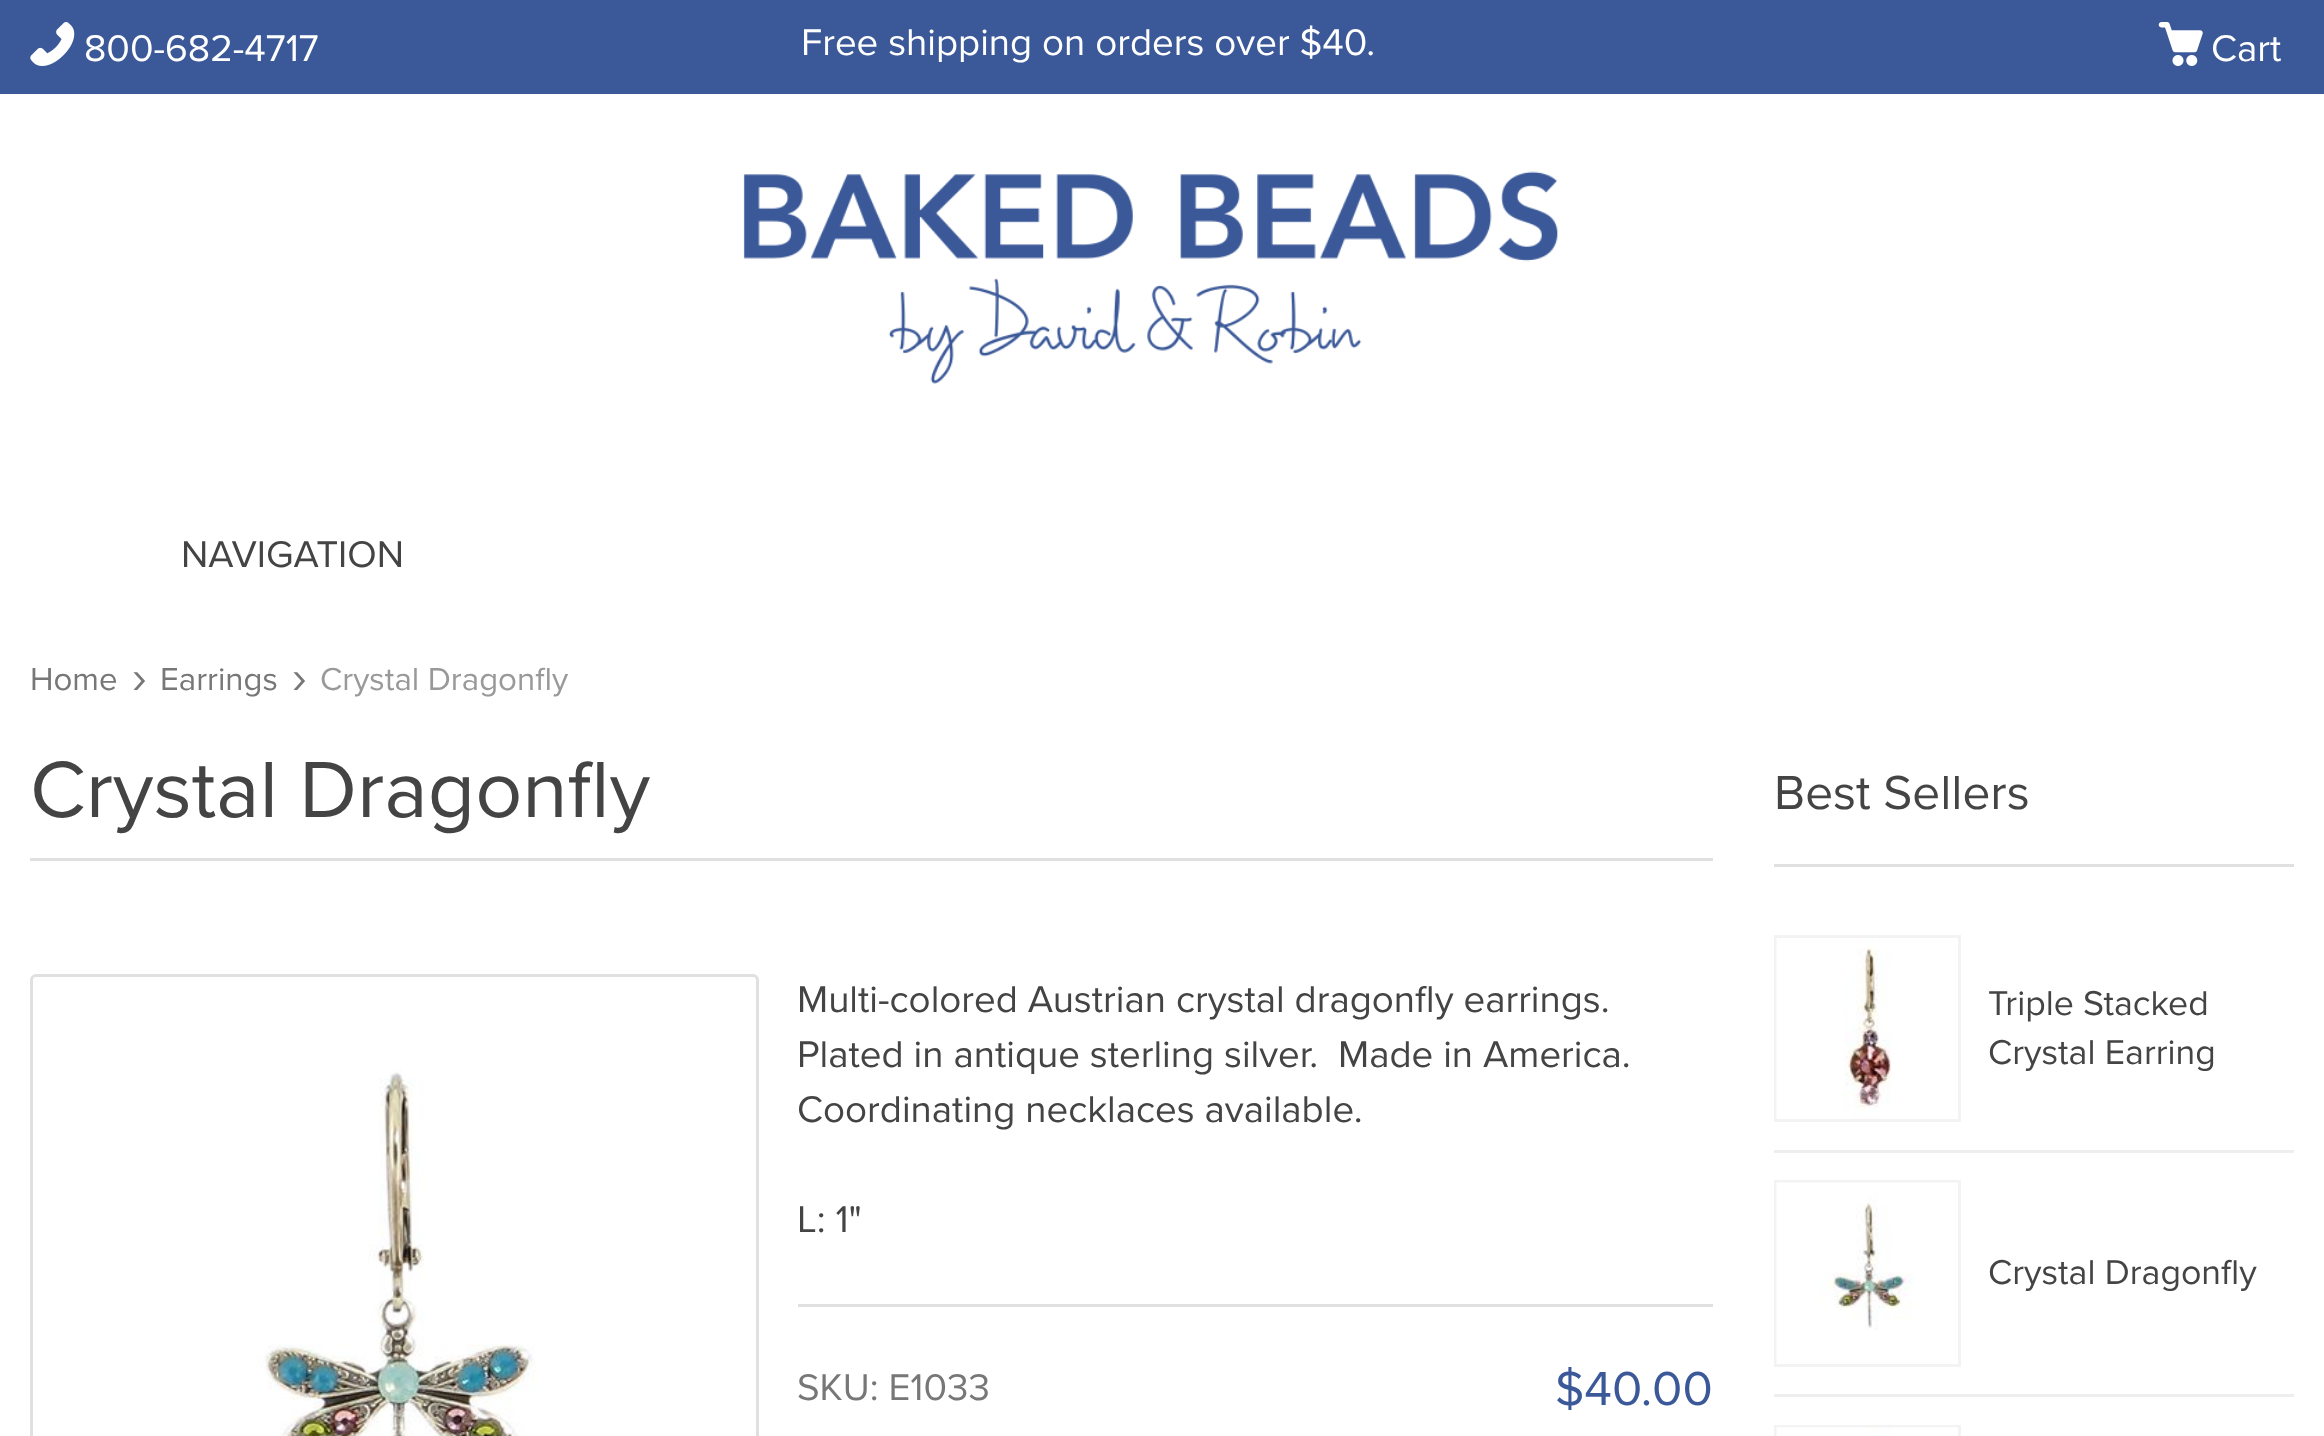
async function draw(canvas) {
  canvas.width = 2324
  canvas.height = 1436
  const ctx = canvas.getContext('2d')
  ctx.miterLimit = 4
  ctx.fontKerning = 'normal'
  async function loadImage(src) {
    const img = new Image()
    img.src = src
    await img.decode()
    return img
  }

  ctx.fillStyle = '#fff'
  ctx.fillRect(0, 0, 2324, 1436)
  ctx.fillStyle = '#3b5998'
  ctx.fillRect(0, 0, 2324, 94)
  ctx.drawImage(await loadImage('image0.png'), 30, 22, 45, 44)
  ctx.font = '38.5px Proxima Nova'
  ctx.fillStyle = '#fff'
  ctx.fillText('800-682-4717', 84, 61)
  ctx.fillText('Free shipping on orders over $40.', 801, 55)
  ctx.drawImage(await loadImage('image1.png'), 2158, 22, 45, 44)
  ctx.fillText('Cart', 2211, 61)
  ctx.drawImage(await loadImage('image2.png'), 743, 171, 815, 213)
  ctx.fillStyle = '#444'
  ctx.fillText('NAVIGATION', 181, 567)
  ctx.font = '33px Proxima Nova'
  ctx.fillStyle = '#777'
  ctx.fillText('Home', 30, 690)
  ctx.font = '49.5px Proxima Nova'
  ctx.fillText('›', 132, 693)
  ctx.font = '33px Proxima Nova'
  ctx.fillText('Earrings', 160, 690)
  ctx.font = '49.5px Proxima Nova'
  ctx.fillText('›', 292, 693)
  ctx.font = '33px Proxima Nova'
  ctx.fillStyle = '#999'
  ctx.fillText('Crystal Dragonfly', 320, 690)
  ctx.fillStyle = '#e0e0e0'
  ctx.fillRect(30, 858, 1683, 3)
  ctx.font = '82.5px Proxima Nova'
  ctx.fillStyle = '#444'
  ctx.fillText('Crystal Dragonfly', 30, 817)
  ctx.beginPath()
  ctx.roundRect(31.5, 975.5, 726, 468, 4.5)
  ctx.strokeStyle = '#e0e0e0'
  ctx.lineWidth = 3
  ctx.stroke()
  ctx.drawImage(await loadImage('image3.png'), 47, 990, 693, 446)
  ctx.font = '38.5px Proxima Nova'
  ctx.fillText('Multi-colored Austrian crystal dragonfly earrings.', 797, 1012)
  ctx.fillText('Plated in antique sterling silver.  Made in America.', 797, 1067)
  ctx.fillText('Coordinating necklaces available.', 797, 1122)
  ctx.fillText('L: 1"', 797, 1232)
  ctx.fillStyle = '#e0e0e0'
  ctx.fillRect(798, 1304, 915, 3)
  ctx.fillStyle = '#777'
  ctx.fillText('SKU: E1033', 797, 1400)
  ctx.font = '49.5px Proxima Nova'
  ctx.fillStyle = '#3b5998'
  ctx.fillText('$40.00', 1555, 1405)
  ctx.fillStyle = '#e0e0e0'
  ctx.fillRect(1774, 864, 520, 3)
  ctx.fillStyle = '#444'
  ctx.fillText('Best Sellers', 1774, 809)
  ctx.fillStyle = '#f3f3f3'
  ctx.fillRect(1774, 935, 187, 187)
  ctx.drawImage(await loadImage('image4.png'), 1776, 938, 182, 181)
  ctx.font = '35.75px Proxima Nova'
  ctx.fillStyle = '#444'
  ctx.fillText('Triple Stacked', 1988, 1015)
  ctx.fillText('Crystal Earring', 1988, 1064)
  ctx.fillStyle = '#eee'
  ctx.fillRect(1774, 1150, 520, 3)
  ctx.fillStyle = '#f3f3f3'
  ctx.fillRect(1774, 1180, 187, 187)
  ctx.drawImage(await loadImage('image5.png'), 1776, 1182, 182, 182)
  ctx.fillStyle = '#444'
  ctx.fillText('Crystal Dragonfly', 1988, 1284)
  ctx.fillStyle = '#eee'
  ctx.fillRect(1774, 1394, 520, 3)
  ctx.fillStyle = '#f3f3f3'
  ctx.fillRect(1774, 1425, 187, 11)
  ctx.drawImage(await loadImage('image6.png'), 1776, 1427, 182, 9)
}

draw(document.querySelector('canvas'))
